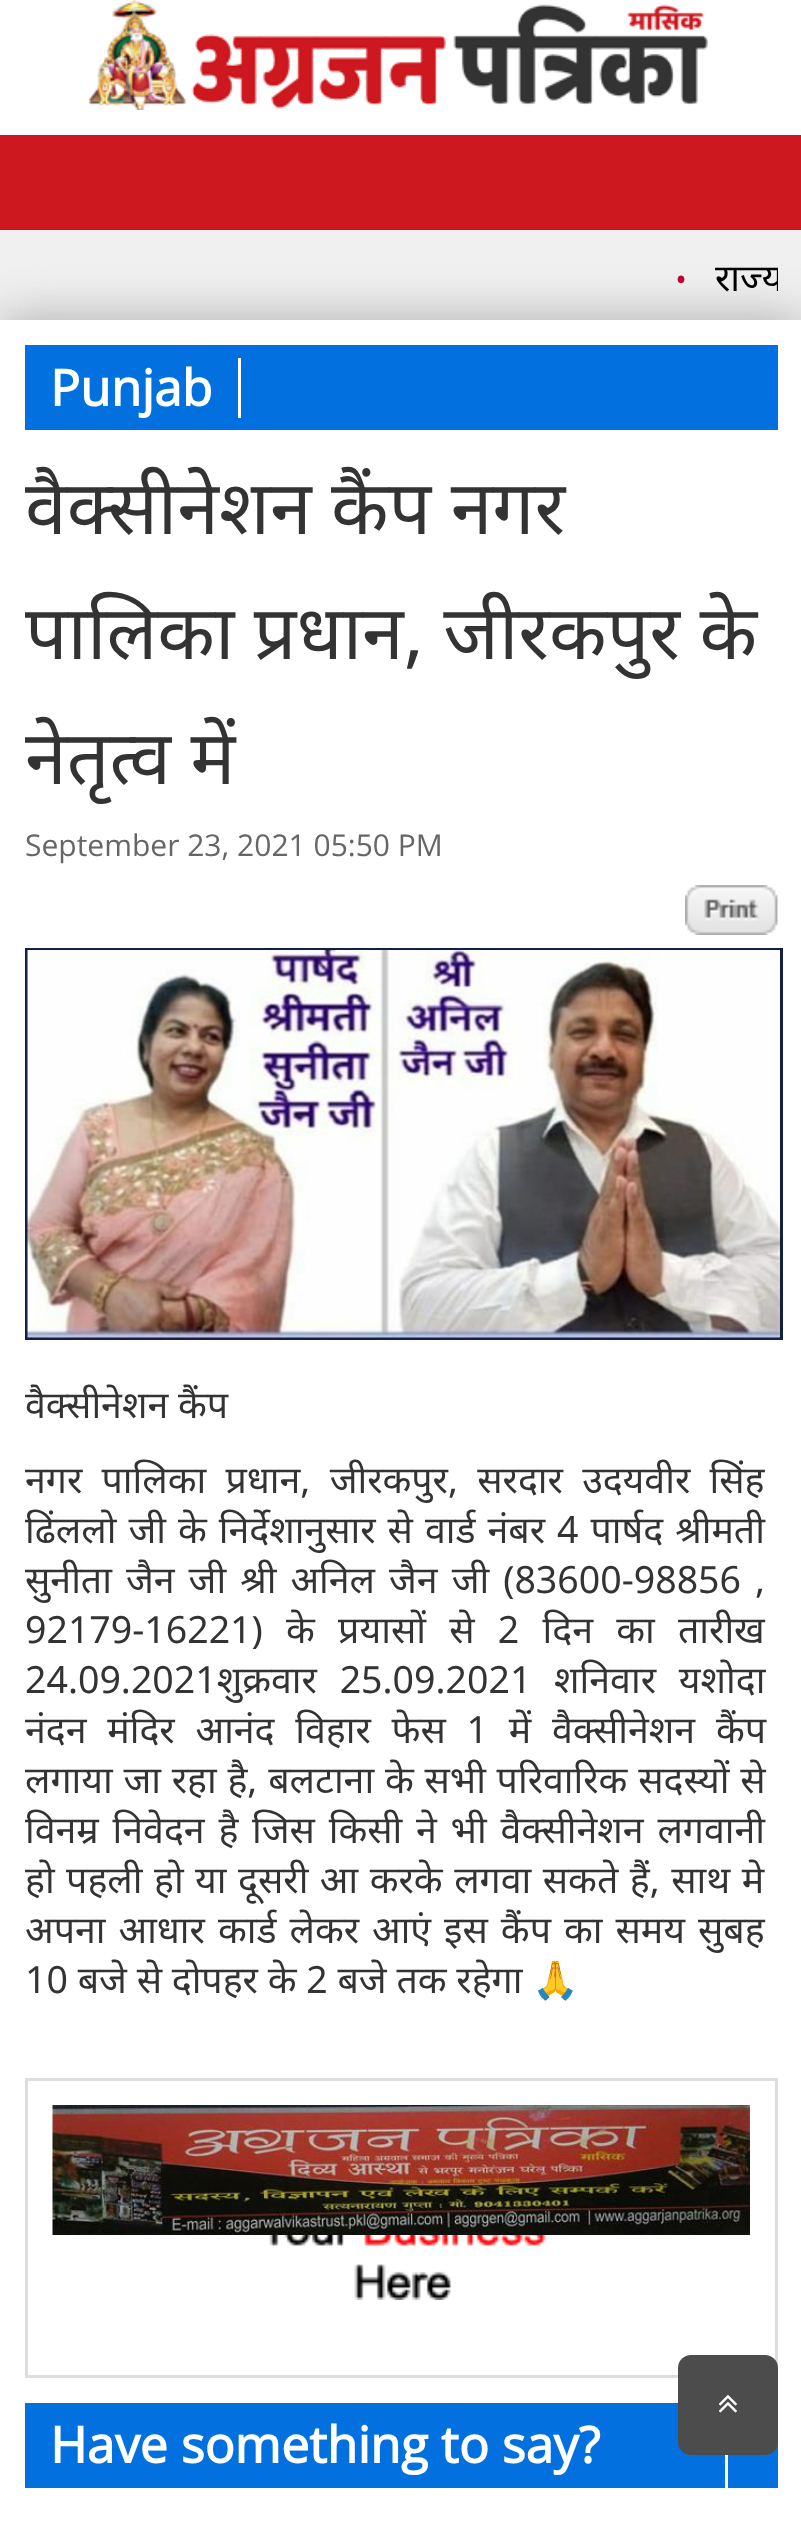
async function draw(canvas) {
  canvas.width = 801
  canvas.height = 2528
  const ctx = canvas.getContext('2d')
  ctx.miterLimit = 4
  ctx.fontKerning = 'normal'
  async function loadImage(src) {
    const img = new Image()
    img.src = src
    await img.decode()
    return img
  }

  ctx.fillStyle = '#fff'
  ctx.fillRect(0, 0, 801, 2528)
  ctx.drawImage(await loadImage('image0.png'), 88, 0, 620, 110)
  ctx.fillStyle = '#cc181e'
  ctx.fillRect(0, 135, 801, 95)
  ctx.fillStyle = '#f0f0f0'
  ctx.fillRect(0, 230, 801, 90)
  ctx.fillStyle = '#aaa'
  ctx.filter = 'blur(25px)'
  ctx.beginPath()
  ctx.rect(0, 320, 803, 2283)
  ctx.fill()
  ctx.filter = 'none'
  ctx.font = '32px Open Sans'
  ctx.fillStyle = '#bf0232'
  ctx.fillText('•', 675, 291)
  ctx.save()
  ctx.beginPath()
  ctx.rect(25, 240, 753, 70)
  ctx.clip()
  ctx.font = '37.5px Noto Sans'
  ctx.fillStyle = '#000'
  ctx.fillText('राज्य', 715, 291)
  ctx.restore()
  ctx.fillStyle = '#fff'
  ctx.fillRect(0, 320, 801, 2208)
  ctx.fillStyle = '#0270df'
  ctx.fillRect(25, 345, 753, 85)
  ctx.fillStyle = '#fff'
  ctx.fillRect(238, 358, 3, 60)
  ctx.font = 'bold 50px Open Sans'
  ctx.fillText('Punjab', 50, 406)
  ctx.font = '75px Noto Sans'
  ctx.fillStyle = '#333'
  ctx.fillText('वैक्सीनेशन कैंप नगर', 25, 534)
  ctx.fillText('पालिका प्रधान, जीरकपुर के', 25, 659)
  ctx.fillText('नेतृत्व में', 25, 784)
  ctx.font = '30px Open Sans'
  ctx.fillStyle = '#666'
  ctx.fillText('September 23, 2021 05:50 PM', 25, 856)
  ctx.drawImage(await loadImage('image1.png'), 685, 885, 93, 50)
  ctx.strokeStyle = '#131f43'
  ctx.lineWidth = 3
  ctx.strokeRect(26.5, 949.5, 755, 389)
  ctx.drawImage(await loadImage('image2.png'), 27, 950, 753, 388)
  ctx.font = '37.5px Noto Sans'
  ctx.fillStyle = '#333'
  ctx.fillText('वैक्सीनेशन कैंप', 25, 1418)
  ctx.wordSpacing = '9.5px'
  ctx.fillText('नगर पालिका प्रधान, जीरकपुर, सरदार उदयवीर सिंह', 25, 1493)
  ctx.wordSpacing = '2.25px'
  ctx.fillText('ढिंललो जी के निर्देशानुसार से वार्ड नंबर 4 पार्षद श्रीमती', 25, 1543)
  ctx.wordSpacing = '4.25px'
  ctx.fillText('सुनीता जैन जी श्री अनिल जैन जी (83600-98856 ,', 25, 1593)
  ctx.wordSpacing = '13.5px'
  ctx.fillText('92179-16221) के प्रयासों से 2 दिन का तारीख', 25, 1643)
  ctx.wordSpacing = '13px'
  ctx.fillText('24.09.2021शुक्रवार 25.09.2021 शनिवार यशोदा', 25, 1693)
  ctx.wordSpacing = '11px'
  ctx.fillText('नंदन मंदिर आनंद विहार फेस 1 में वैक्सीनेशन कैंप', 25, 1743)
  ctx.wordSpacing = '1px'
  ctx.fillText('लगाया जा रहा है, बलटाना के सभी परिवारिक सदस्यों से', 25, 1793)
  ctx.wordSpacing = '4px'
  ctx.fillText('विनम्र निवेदन है जिस किसी ने भी वैक्सीनेशन लगवानी', 25, 1843)
  ctx.wordSpacing = '1.75px'
  ctx.fillText('हो पहली हो या दूसरी आ करके लगवा सकते हैं, साथ मे', 25, 1893)
  ctx.wordSpacing = '3.25px'
  ctx.fillText('अपना आधार कार्ड लेकर आएं इस कैंप का समय सुबह', 25, 1943)
  ctx.wordSpacing = '0px'
  ctx.fillText('10 बजे से दोपहर के 2 बजे तक रहेगा', 25, 1993)
  ctx.font = '37.5px Noto Color Emoji'
  ctx.fillText('🙏', 532, 1993)
  ctx.drawImage(await loadImage('image3.png'), 269, 2235, 277, 65)
  ctx.strokeStyle = '#ddd'
  ctx.strokeRect(26.5, 2079.5, 750, 297)
  ctx.drawImage(await loadImage('image4.png'), 52, 2105, 698, 130)
  ctx.fillStyle = '#0270df'
  ctx.fillRect(25, 2403, 753, 85)
  ctx.fillStyle = '#fff'
  ctx.fillRect(725, 2455, 3, 33)
  ctx.font = 'bold 50px Open Sans'
  ctx.fillText('Have something to say?', 50, 2463)
  ctx.fillStyle = '#4c4c4c'
  ctx.beginPath()
  ctx.roundRect(678, 2355, 100, 100, 13)
  ctx.fill()
  ctx.drawImage(await loadImage('image5.png'), 719, 2395, 18, 18)
}

draw(document.querySelector('canvas'))
